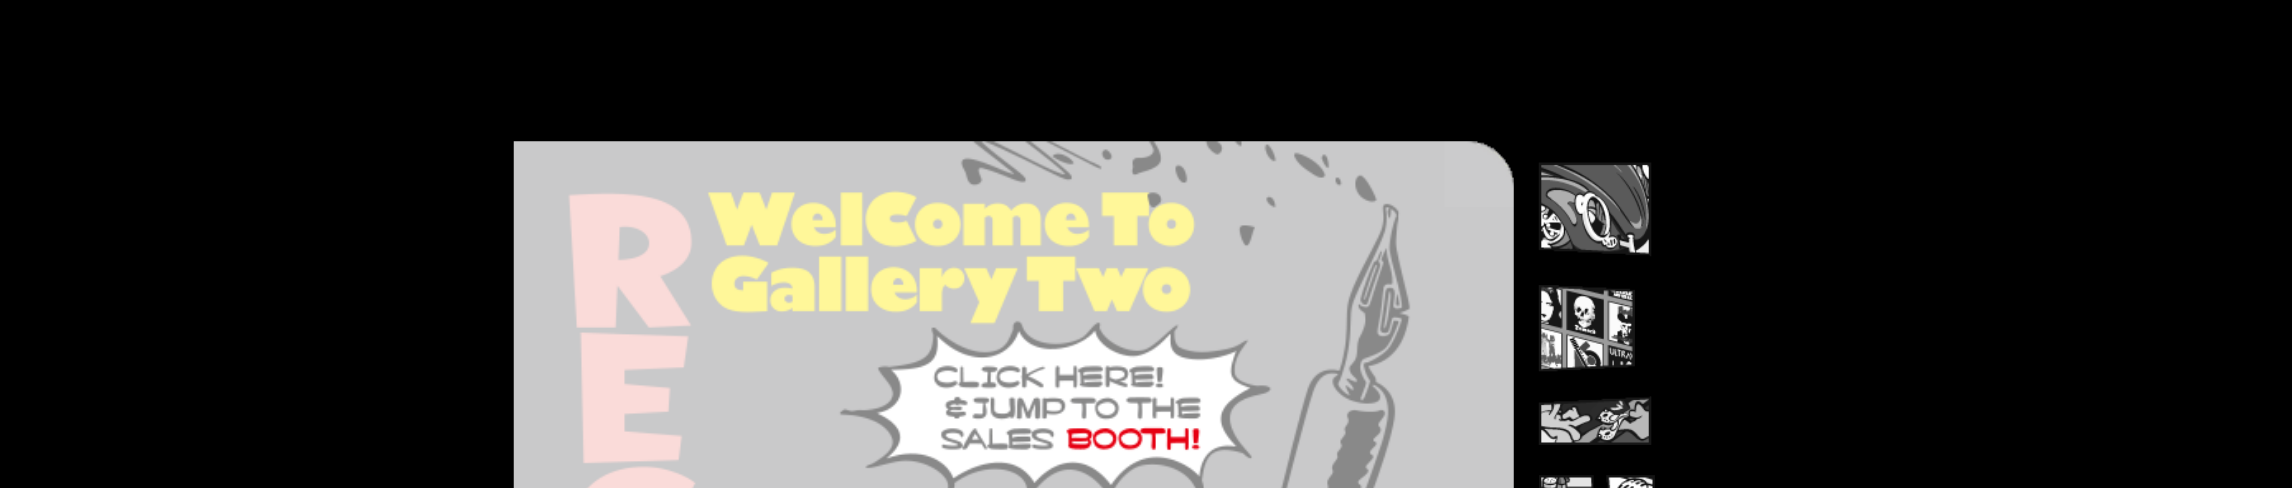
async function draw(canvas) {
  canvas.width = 2292
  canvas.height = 488
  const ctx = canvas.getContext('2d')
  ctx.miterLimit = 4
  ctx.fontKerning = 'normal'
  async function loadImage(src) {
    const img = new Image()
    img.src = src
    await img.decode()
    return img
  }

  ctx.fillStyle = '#000'
  ctx.fillRect(0, 0, 2292, 488)
  ctx.drawImage(await loadImage('image0.png'), 513, 141, 1001, 347)
  ctx.drawImage(await loadImage('image1.png'), 1538, 162, 114, 95)
  ctx.drawImage(await loadImage('image2.png'), 1538, 285, 97, 87)
  ctx.drawImage(await loadImage('image3.png'), 1538, 396, 114, 49)
  ctx.drawImage(await loadImage('image4.png'), 1539, 475, 55, 13)
  ctx.drawImage(await loadImage('image5.png'), 1606, 475, 49, 13)
}

draw(document.querySelector('canvas'))
